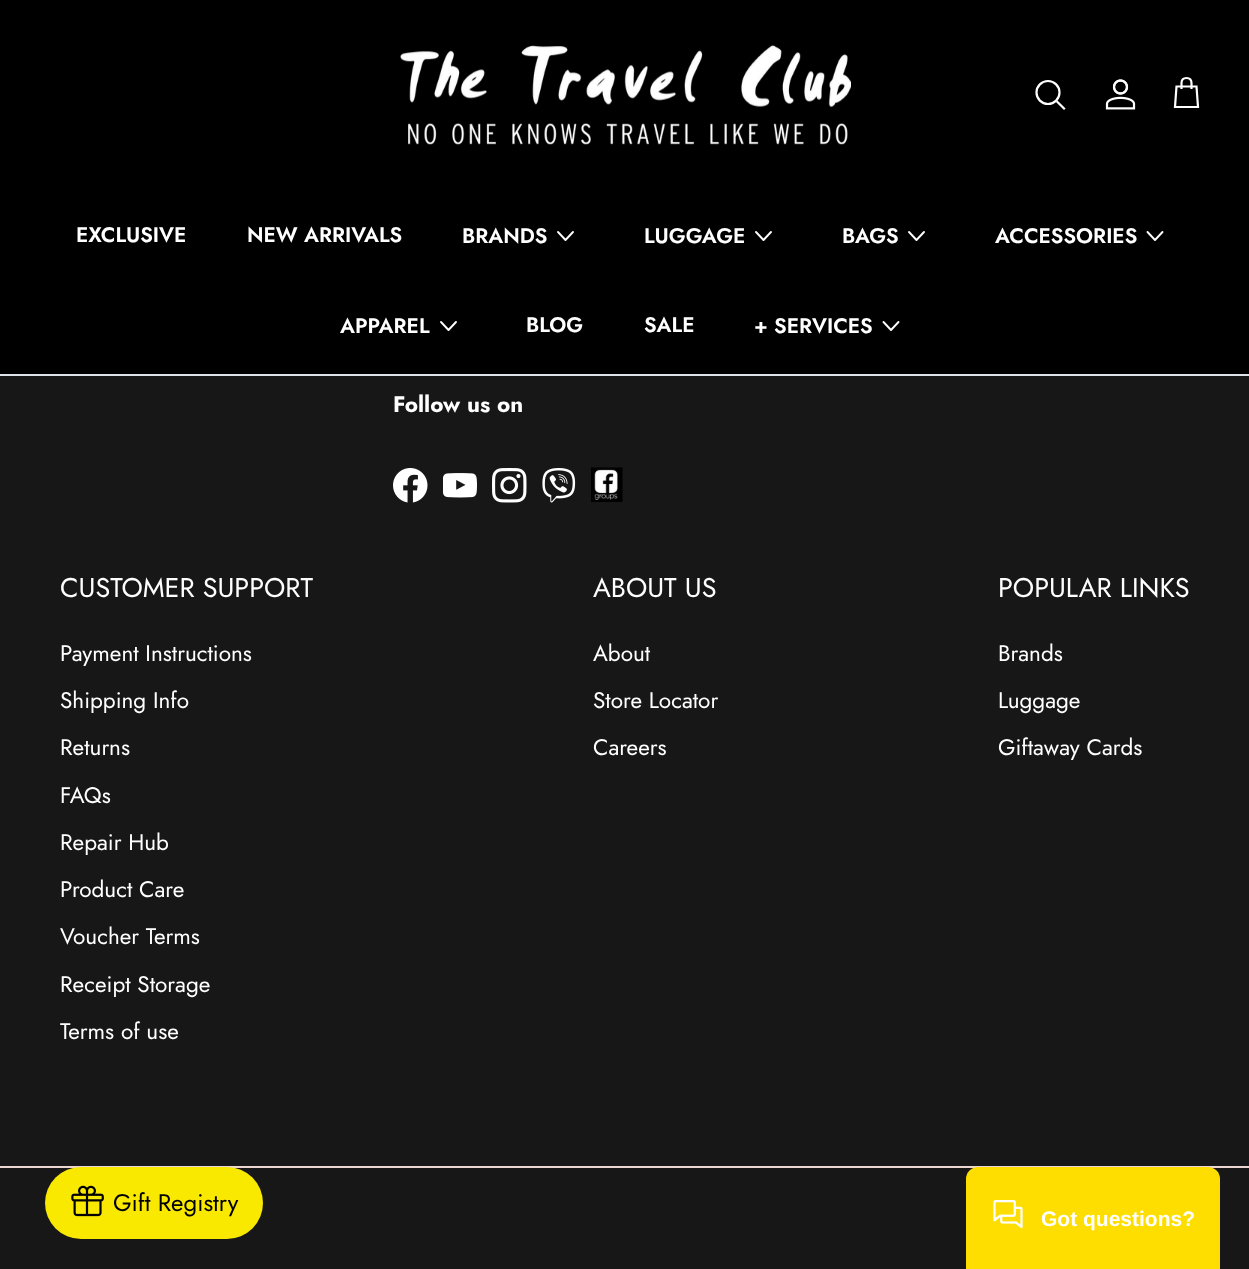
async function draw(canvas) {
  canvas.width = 1249
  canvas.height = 1269
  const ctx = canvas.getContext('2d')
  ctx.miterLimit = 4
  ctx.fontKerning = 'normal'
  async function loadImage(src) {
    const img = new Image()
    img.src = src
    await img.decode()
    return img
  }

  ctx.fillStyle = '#171717'
  ctx.fillRect(0, 0, 1249, 1269)
  ctx.fillStyle = '#000'
  ctx.fillRect(0, 0, 1249, 374)
  ctx.drawImage(await loadImage('image0.png'), 400, 45, 451, 100)
  ctx.beginPath()
  ctx.arc(1048, 92.5, 11.5, 0, 2 * Math.PI)
  ctx.strokeStyle = '#fff'
  ctx.lineWidth = 2.2
  ctx.stroke()
  ctx.beginPath()
  ctx.moveTo(1057.5, 102)
  ctx.lineTo(1064, 108.5)
  ctx.lineCap = 'square'
  ctx.stroke()
  ctx.drawImage(await loadImage('image1.png'), 1105, 79, 31, 31)
  ctx.beginPath()
  ctx.moveTo(1191.5, 89)
  ctx.lineTo(1191.5, 83)
  ctx.bezierCurveTo(1191.5, 80, 1189.5, 78, 1186.5, 78)
  ctx.bezierCurveTo(1183.5, 78, 1181.5, 80, 1181.5, 83)
  ctx.lineTo(1181.5, 89)
  ctx.moveTo(1176.5, 86.5)
  ctx.lineTo(1196.5, 86.5)
  ctx.lineTo(1198, 107)
  ctx.lineTo(1175, 107)
  ctx.closePath()
  ctx.lineCap = 'butt'
  ctx.stroke()
  ctx.fillStyle = '#dfe3e8'
  ctx.fillRect(0, 374, 1249, 2)
  ctx.font = '600 21px Jost'
  ctx.fillStyle = '#fff'
  ctx.fillText('EXCLUSIVE', 76, 242)
  ctx.fillText('NEW ARRIVALS', 247, 242)
  ctx.fillText('BRANDS', 462, 243)
  ctx.beginPath()
  ctx.moveTo(558, 232)
  ctx.lineTo(565.5, 240)
  ctx.lineTo(573, 232)
  ctx.lineWidth = 1.9
  ctx.lineCap = 'round'
  ctx.lineJoin = 'round'
  ctx.stroke()
  ctx.fillText('LUGGAGE', 644, 243)
  ctx.beginPath()
  ctx.moveTo(756, 232)
  ctx.lineTo(763.5, 240)
  ctx.lineTo(771, 232)
  ctx.stroke()
  ctx.fillText('BAGS', 842, 243)
  ctx.beginPath()
  ctx.moveTo(909, 232)
  ctx.lineTo(916.5, 240)
  ctx.lineTo(924, 232)
  ctx.stroke()
  ctx.fillText('ACCESSORIES', 995, 243)
  ctx.beginPath()
  ctx.moveTo(1147.5, 232)
  ctx.lineTo(1155, 240)
  ctx.lineTo(1162.5, 232)
  ctx.stroke()
  ctx.fillText('APPAREL', 340, 333)
  ctx.beginPath()
  ctx.moveTo(441, 322)
  ctx.lineTo(448.5, 330)
  ctx.lineTo(456, 322)
  ctx.stroke()
  ctx.fillText('BLOG', 526, 332)
  ctx.fillText('SALE', 644, 332)
  ctx.fillText('+ SERVICES', 754, 333)
  ctx.beginPath()
  ctx.moveTo(883.5, 322)
  ctx.lineTo(891, 330)
  ctx.lineTo(898.5, 322)
  ctx.stroke()
  ctx.font = 'bold 22.5px Jost'
  ctx.fillText('Follow us on', 393, 412)
  ctx.drawImage(await loadImage('image2.png'), 393, 468, 35, 35)
  ctx.drawImage(await loadImage('image3.png'), 443, 473, 34, 25)
  ctx.drawImage(await loadImage('image4.png'), 492, 468, 35, 35)
  ctx.drawImage(await loadImage('image5.png'), 542, 468, 34, 35)
  ctx.drawImage(await loadImage('image6.png'), 591, 467, 32, 35)
  ctx.font = '27px Jost'
  ctx.fillText('CUSTOMER SUPPORT', 60, 597)
  ctx.font = '22.5px Jost'
  ctx.fillText('Payment Instructions', 60, 661)
  ctx.fillText('Shipping Info', 60, 708)
  ctx.fillText('Returns', 60, 755)
  ctx.fillText('FAQs', 60, 803)
  ctx.fillText('Repair Hub', 60, 850)
  ctx.fillText('Product Care', 60, 897)
  ctx.fillText('Voucher Terms', 60, 944)
  ctx.fillText('Receipt Storage', 60, 992)
  ctx.fillText('Terms of use', 60, 1039)
  ctx.font = '27px Jost'
  ctx.fillText('ABOUT US', 593, 597)
  ctx.font = '22.5px Jost'
  ctx.fillText('About', 593, 661)
  ctx.fillText('Store Locator', 593, 708)
  ctx.fillText('Careers', 593, 755)
  ctx.font = '27px Jost'
  ctx.fillText('POPULAR LINKS', 998, 597)
  ctx.font = '22.5px Jost'
  ctx.fillText('Brands', 998, 661)
  ctx.fillText('Luggage', 998, 708)
  ctx.fillText('Giftaway Cards', 998, 755)
  ctx.fillStyle = '#ecd6d1'
  ctx.fillRect(0, 1166, 1249, 2)
  ctx.fillStyle = '#f9e900'
  ctx.beginPath()
  ctx.roundRect(45, 1167, 218, 72, 36)
  ctx.fill()
  ctx.drawImage(await loadImage('image7.png'), 71, 1185, 33, 32)
  ctx.font = '24px Jost'
  ctx.fillStyle = '#000'
  ctx.fillText('Gift Registry', 113, 1211)
  ctx.fillStyle = '#fedd00'
  ctx.beginPath()
  ctx.roundRect(966, 1167, 254, 102, [12, 12, 0, 0])
  ctx.fill()
  ctx.drawImage(await loadImage('image8.png'), 993, 1200, 30, 29)
  ctx.font = 'bold 21px Liberation Sans'
  ctx.fillStyle = '#fff'
  ctx.fillText('Got questions?', 1041, 1226)
}

draw(document.querySelector('canvas'))
